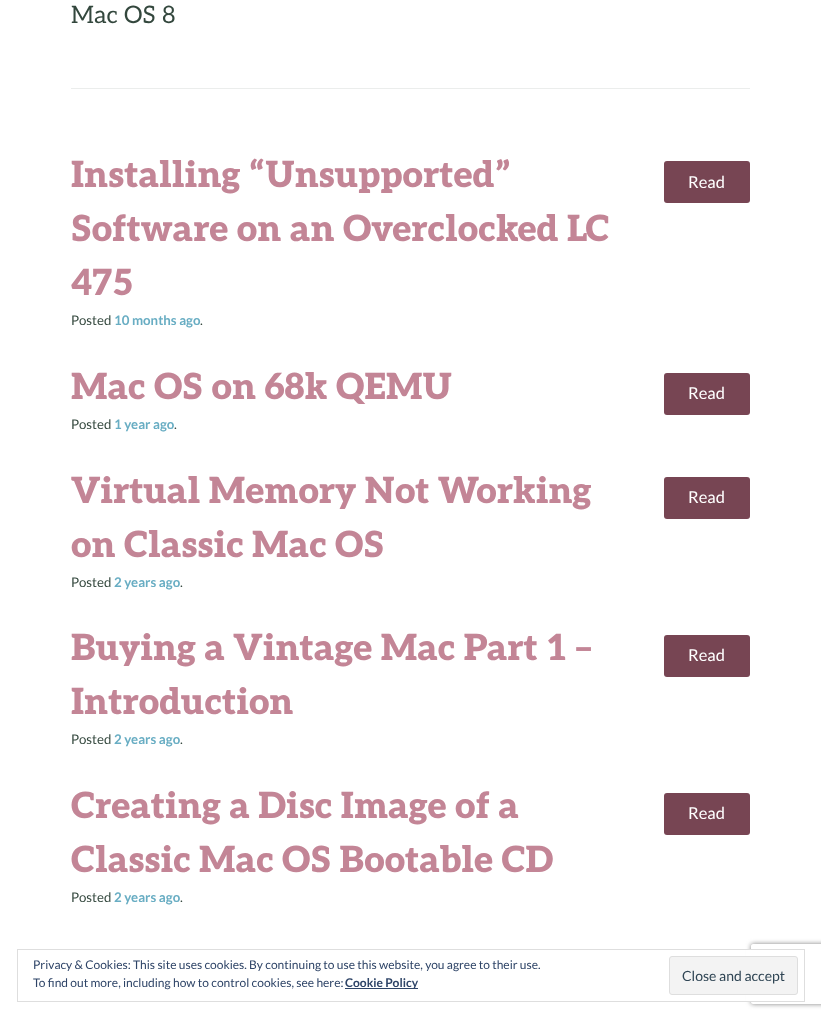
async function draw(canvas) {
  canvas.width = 821
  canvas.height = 1018
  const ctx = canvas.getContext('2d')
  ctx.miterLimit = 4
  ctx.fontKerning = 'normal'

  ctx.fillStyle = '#fff'
  ctx.fillRect(0, 0, 821, 1018)
  ctx.font = '24px Aleo'
  ctx.fillStyle = '#33473d'
  ctx.fillText('Mac OS 8', 71, 23)
  ctx.fillStyle = '#ebedec'
  ctx.fillRect(71, 88, 679, 1)
  ctx.font = '900 36px Aleo'
  ctx.fillStyle = '#c38596'
  ctx.fillText('Installing “Unsupported”', 71, 187)
  ctx.fillText('Software on an Overclocked LC', 71, 241)
  ctx.fillText('475', 71, 295)
  ctx.fillStyle = '#774553'
  ctx.beginPath()
  ctx.roundRect(664, 161, 86, 42, 3)
  ctx.fill()
  ctx.font = '16.5px Lato'
  ctx.fillStyle = '#fff'
  ctx.fillText('Read', 688, 188)
  ctx.font = '13.25px Lato'
  ctx.fillStyle = '#33473d'
  ctx.fillText('Posted', 71, 325)
  ctx.font = 'bold 13.25px Lato'
  ctx.fillStyle = '#68adc3'
  ctx.fillText('10 months ago', 114, 325)
  ctx.font = '13.25px Lato'
  ctx.fillStyle = '#33473d'
  ctx.fillText('.', 200, 325)
  ctx.font = '900 36px Aleo'
  ctx.fillStyle = '#c38596'
  ctx.fillText('Mac OS on 68k QEMU', 71, 399)
  ctx.fillStyle = '#774553'
  ctx.beginPath()
  ctx.roundRect(664, 373, 86, 42, 3)
  ctx.fill()
  ctx.font = '16.5px Lato'
  ctx.fillStyle = '#fff'
  ctx.fillText('Read', 688, 399)
  ctx.font = '13.25px Lato'
  ctx.fillStyle = '#33473d'
  ctx.fillText('Posted', 71, 429)
  ctx.font = 'bold 13.25px Lato'
  ctx.fillStyle = '#68adc3'
  ctx.fillText('1 year ago', 114, 429)
  ctx.font = '13.25px Lato'
  ctx.fillStyle = '#33473d'
  ctx.fillText('.', 174, 429)
  ctx.font = '900 36px Aleo'
  ctx.fillStyle = '#c38596'
  ctx.fillText('Virtual Memory Not Working', 71, 503)
  ctx.fillText('on Classic Mac OS', 71, 557)
  ctx.fillStyle = '#774553'
  ctx.beginPath()
  ctx.roundRect(664, 477, 86, 42, 3)
  ctx.fill()
  ctx.font = '16.5px Lato'
  ctx.fillStyle = '#fff'
  ctx.fillText('Read', 688, 503)
  ctx.font = '13.25px Lato'
  ctx.fillStyle = '#33473d'
  ctx.fillText('Posted', 71, 587)
  ctx.font = 'bold 13.25px Lato'
  ctx.fillStyle = '#68adc3'
  ctx.fillText('2 years ago', 114, 587)
  ctx.font = '13.25px Lato'
  ctx.fillStyle = '#33473d'
  ctx.fillText('.', 180, 587)
  ctx.font = '900 36px Aleo'
  ctx.fillStyle = '#c38596'
  ctx.fillText('Buying a Vintage Mac Part 1 –', 71, 660)
  ctx.fillText('Introduction', 71, 714)
  ctx.fillStyle = '#774553'
  ctx.beginPath()
  ctx.roundRect(664, 635, 86, 42, 3)
  ctx.fill()
  ctx.font = '16.5px Lato'
  ctx.fillStyle = '#fff'
  ctx.fillText('Read', 688, 661)
  ctx.font = '13.25px Lato'
  ctx.fillStyle = '#33473d'
  ctx.fillText('Posted', 71, 744)
  ctx.font = 'bold 13.25px Lato'
  ctx.fillStyle = '#68adc3'
  ctx.fillText('2 years ago', 114, 744)
  ctx.font = '13.25px Lato'
  ctx.fillStyle = '#33473d'
  ctx.fillText('.', 180, 744)
  ctx.font = '900 36px Aleo'
  ctx.fillStyle = '#c38596'
  ctx.fillText('Creating a Disc Image of a', 71, 818)
  ctx.fillText('Classic Mac OS Bootable CD', 71, 872)
  ctx.fillStyle = '#774553'
  ctx.beginPath()
  ctx.roundRect(664, 793, 86, 42, 3)
  ctx.fill()
  ctx.font = '16.5px Lato'
  ctx.fillStyle = '#fff'
  ctx.fillText('Read', 688, 819)
  ctx.font = '13.25px Lato'
  ctx.fillStyle = '#33473d'
  ctx.fillText('Posted', 71, 902)
  ctx.font = 'bold 13.25px Lato'
  ctx.fillStyle = '#68adc3'
  ctx.fillText('2 years ago', 114, 902)
  ctx.font = '13.25px Lato'
  ctx.fillStyle = '#33473d'
  ctx.fillText('.', 180, 902)
  ctx.save()
  ctx.beginPath()
  ctx.moveTo(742, 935)
  ctx.lineTo(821, 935)
  ctx.lineTo(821, 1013)
  ctx.lineTo(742, 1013)
  ctx.closePath()
  ctx.moveTo(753, 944)
  ctx.lineTo(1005, 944)
  ctx.bezierCurveTo(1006, 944, 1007, 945, 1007, 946)
  ctx.lineTo(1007, 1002)
  ctx.bezierCurveTo(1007, 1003, 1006, 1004, 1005, 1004)
  ctx.lineTo(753, 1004)
  ctx.bezierCurveTo(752, 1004, 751, 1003, 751, 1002)
  ctx.lineTo(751, 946)
  ctx.bezierCurveTo(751, 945, 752, 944, 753, 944)
  ctx.closePath()
  ctx.clip('evenodd')
  ctx.fillStyle = '#808080'
  ctx.filter = 'blur(2.5px)'
  ctx.beginPath()
  ctx.roundRect(751, 944, 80, 60, 2)
  ctx.fill()
  ctx.filter = 'none'
  ctx.restore()
  ctx.fillStyle = '#fff'
  ctx.fillRect(746, 950, 5, 51)
  ctx.strokeStyle = '#dedede'
  ctx.strokeRect(17.5, 949.5, 787, 52)
  ctx.font = '12px Lato'
  ctx.fillStyle = '#2e4467'
  ctx.fillText('Privacy & Cookies: This site uses cookies. By continuing to use this website, you agree to their use.', 33, 969)
  ctx.fillText('To find out more, including how to control cookies, see here:', 33, 987)
  ctx.fillRect(345, 988, 73, 1)
  ctx.font = 'bold 12px Lato'
  ctx.fillText('Cookie Policy', 345, 987)
  ctx.fillStyle = '#f3f3f3'
  ctx.beginPath()
  ctx.roundRect(669.5, 956.5, 128, 38, 2.5)
  ctx.fill()
  ctx.stroke()
  ctx.font = '14px Lato'
  ctx.fillStyle = '#2e4453'
  ctx.fillText('Close and accept', 682, 981)
}

draw(document.querySelector('canvas'))
